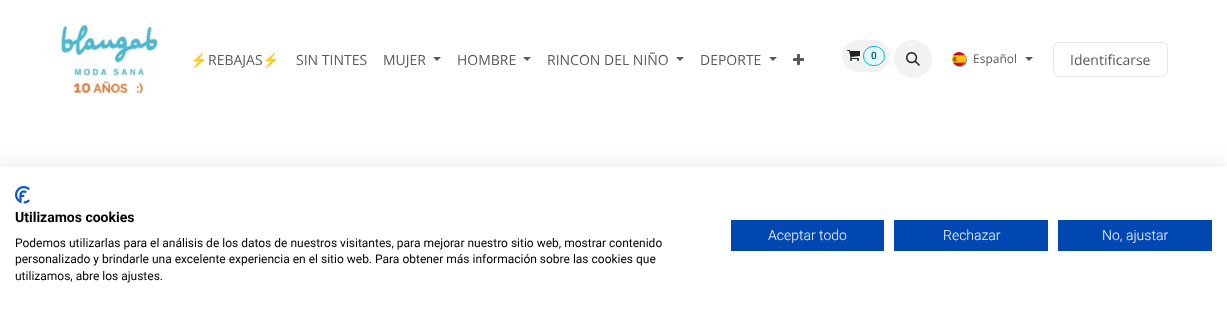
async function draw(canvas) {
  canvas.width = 1227
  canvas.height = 312
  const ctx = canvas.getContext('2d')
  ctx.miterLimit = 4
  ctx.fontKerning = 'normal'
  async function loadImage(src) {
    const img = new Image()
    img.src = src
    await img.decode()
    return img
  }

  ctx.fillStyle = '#fff'
  ctx.fillRect(0, 0, 1227, 312)
  ctx.drawImage(await loadImage('image0.png'), 60, 24, 98, 70)
  ctx.font = '14px Noto Color Emoji'
  ctx.fillStyle = '#595959'
  ctx.fillText('⚡', 190, 65)
  ctx.font = '14px Open Sans'
  ctx.fillText('REBAJAS', 208, 65)
  ctx.font = '14px Noto Color Emoji'
  ctx.fillText('⚡', 262, 65)
  ctx.font = '14px Open Sans'
  ctx.fillText('SIN TINTES', 296, 65)
  ctx.fillText('MUJER', 383, 65)
  ctx.beginPath()
  ctx.moveTo(433, 57)
  ctx.lineTo(441, 57)
  ctx.lineTo(437, 61)
  ctx.closePath()
  ctx.fill()
  ctx.fillText('HOMBRE', 457, 65)
  ctx.beginPath()
  ctx.moveTo(523, 57)
  ctx.lineTo(531, 57)
  ctx.lineTo(527, 61)
  ctx.closePath()
  ctx.fill()
  ctx.fillText('RINCON DEL NIÑO', 547, 65)
  ctx.beginPath()
  ctx.moveTo(676, 57)
  ctx.lineTo(684, 57)
  ctx.lineTo(680, 61)
  ctx.closePath()
  ctx.fill()
  ctx.fillText('DEPORTE', 700, 65)
  ctx.beginPath()
  ctx.moveTo(769, 57)
  ctx.lineTo(777, 57)
  ctx.lineTo(773, 61)
  ctx.closePath()
  ctx.fill()
  ctx.drawImage(await loadImage('image1.png'), 793, 54, 11, 11)
  ctx.fillStyle = '#f2f2f2'
  ctx.beginPath()
  ctx.roundRect(842, 40, 48, 32, 16)
  ctx.fill()
  ctx.drawImage(await loadImage('image2.png'), 847, 50, 13, 11)
  ctx.fillStyle = '#e6f8fa'
  ctx.beginPath()
  ctx.roundRect(863.5, 46.5, 21, 19, 9.5)
  ctx.fill()
  ctx.strokeStyle = '#08b7cb'
  ctx.stroke()
  ctx.font = '600 10px Roboto'
  ctx.fillStyle = '#056773'
  ctx.fillText('0', 871, 59)
  ctx.fillStyle = '#f2f2f2'
  ctx.beginPath()
  ctx.arc(913, 59, 19, 0, 2 * Math.PI)
  ctx.fill()
  ctx.drawImage(await loadImage('image3.png'), 906, 52, 14, 14)
  ctx.fillStyle = '#0000006e'
  ctx.filter = 'blur(0.5px)'
  ctx.beginPath()
  ctx.roundRect(953, 53, 14, 14, 7)
  ctx.fill()
  ctx.filter = 'none'
  ctx.drawImage(await loadImage('image4.png'), 952, 52, 14, 14)
  ctx.font = '12px Open Sans'
  ctx.fillStyle = '#595959'
  ctx.fillText('Español', 973, 63)
  ctx.beginPath()
  ctx.moveTo(1025, 57)
  ctx.lineTo(1033, 57)
  ctx.lineTo(1029, 61)
  ctx.closePath()
  ctx.fill()
  ctx.beginPath()
  ctx.roundRect(1053.5, 42.5, 114, 34, 5.5)
  ctx.strokeStyle = '#e6e6e6'
  ctx.stroke()
  ctx.font = '14px Open Sans'
  ctx.fillText('Identificarse', 1070, 65)
  ctx.fillStyle = '#0000001a'
  ctx.filter = 'blur(12px)'
  ctx.beginPath()
  ctx.rect(0, 167, 1227, 145)
  ctx.fill()
  ctx.filter = 'none'
  ctx.fillStyle = '#fff'
  ctx.fillRect(0, 167, 1227, 145)
  ctx.drawImage(await loadImage('image5.png'), 15, 186, 15, 18)
  ctx.font = 'bold 14px Roboto'
  ctx.fillStyle = '#000'
  ctx.fillText('Utilizamos cookies', 15, 222)
  ctx.font = '12px Roboto'
  ctx.fillText('Podemos utilizarlas para el análisis de los datos de nuestros visitantes, para mejorar nuestro sitio web, mostrar contenido', 15, 247)
  ctx.fillText('personalizado y brindarle una excelente experiencia en el sitio web. Para obtener más información sobre las cookies que', 15, 263)
  ctx.fillText('utilizamos, abre los ajustes.', 15, 280)
  ctx.fillStyle = '#0047b2'
  ctx.fillRect(731, 220, 153, 31)
  ctx.font = '300 14px Roboto'
  ctx.fillStyle = '#fff'
  ctx.fillText('Aceptar todo', 768, 240)
  ctx.fillStyle = '#0047b2'
  ctx.fillRect(894, 220, 154, 31)
  ctx.fillStyle = '#fff'
  ctx.fillText('Rechazar', 943, 240)
  ctx.fillStyle = '#0047b2'
  ctx.fillRect(1058, 220, 154, 31)
  ctx.fillStyle = '#fff'
  ctx.fillText('No, ajustar', 1102, 240)
}

draw(document.querySelector('canvas'))
